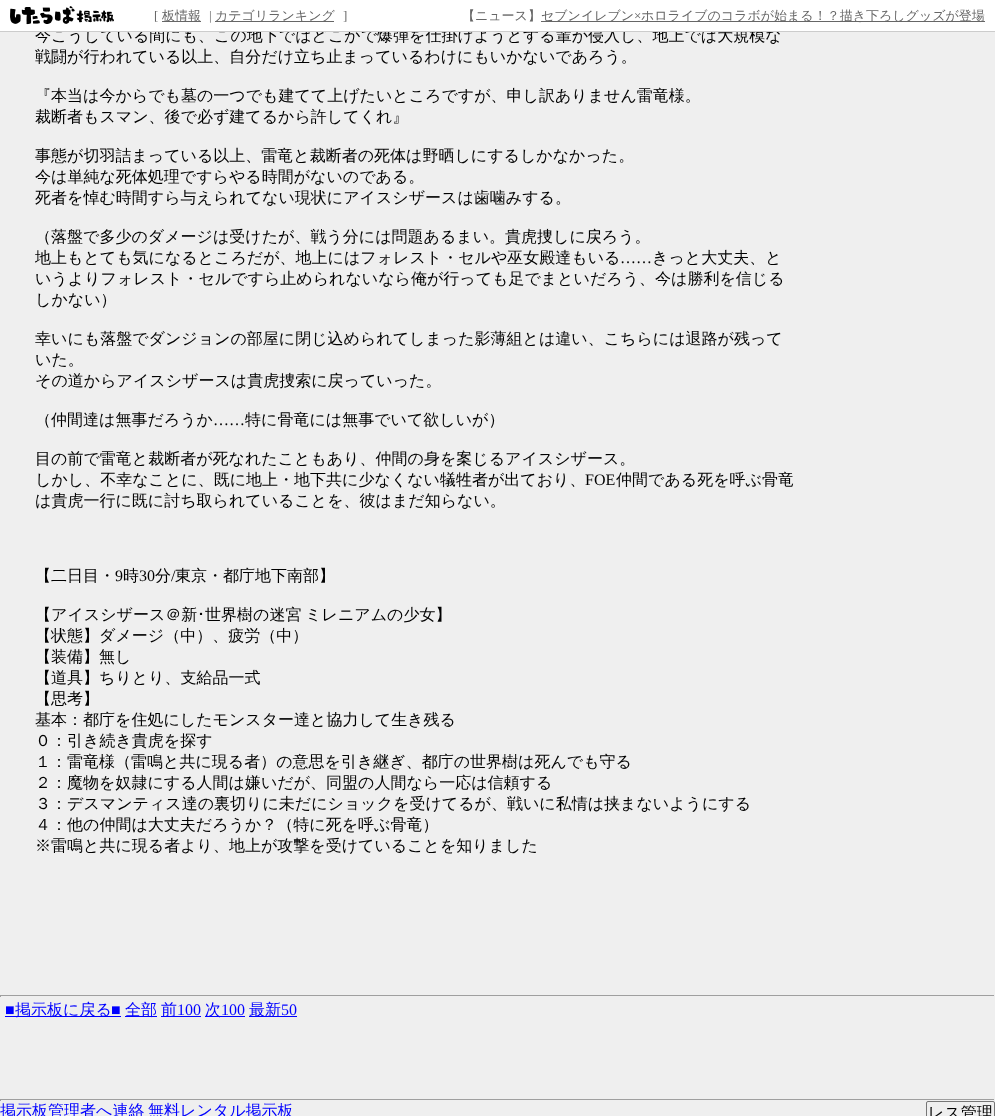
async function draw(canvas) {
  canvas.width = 995
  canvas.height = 1116
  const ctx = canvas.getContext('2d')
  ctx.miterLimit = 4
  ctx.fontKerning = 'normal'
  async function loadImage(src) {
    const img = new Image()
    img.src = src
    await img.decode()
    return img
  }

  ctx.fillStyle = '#efefef'
  ctx.fillRect(0, 0, 995, 1116)
  ctx.font = '500 16px WenQuanYi Zen Hei'
  ctx.fillStyle = '#000'
  ctx.fillText('今こうしている間にも、この地下ではどこかで爆弾を仕掛けようとする輩が侵入し、地上では大規模な', 35, 41)
  ctx.fillStyle = '#fff'
  ctx.fillRect(0, 0, 995, 31)
  ctx.fillStyle = '#ccc'
  ctx.fillRect(0, 31, 995, 1)
  ctx.drawImage(await loadImage('image0.png'), 10, 6, 104, 19)
  ctx.font = '13px Liberation Serif'
  ctx.fillStyle = '#666'
  ctx.fillText('[', 154, 20)
  ctx.fillRect(162, 21, 39, 1)
  ctx.font = '500 13px WenQuanYi Zen Hei'
  ctx.fillText('板情報', 162, 20)
  ctx.font = '13px Liberation Serif'
  ctx.fillText('|', 209, 20)
  ctx.fillRect(215, 21, 119, 1)
  ctx.font = '500 13px WenQuanYi Zen Hei'
  ctx.fillText('カテゴリランキング', 215, 20)
  ctx.font = '13px Liberation Serif'
  ctx.fillText(']', 343, 20)
  ctx.font = '500 13px WenQuanYi Zen Hei'
  ctx.fillText('【ニュース】', 462, 20)
  ctx.fillRect(541, 21, 444, 1)
  ctx.fillText('セブンイレブン', 541, 20)
  ctx.font = '13px Liberation Serif'
  ctx.fillText('×', 634, 20)
  ctx.font = '500 13px WenQuanYi Zen Hei'
  ctx.fillText('ホロライブのコラボが始まる！？描き下ろしグッズが登場', 641, 20)
  ctx.font = '500 16px WenQuanYi Zen Hei'
  ctx.fillStyle = '#000'
  ctx.fillText('戦闘が行われている以上、自分だけ立ち止まっているわけにもいかないであろう。', 35, 62)
  ctx.fillText('『本当は今からでも墓の一つでも建てて上げたいところですが、申し訳ありません雷竜様。', 35, 101)
  ctx.fillText('裁断者もスマン、後で必ず建てるから許してくれ』', 35, 122)
  ctx.fillText('事態が切羽詰まっている以上、雷竜と裁断者の死体は野晒しにするしかなかった。', 35, 161)
  ctx.fillText('今は単純な死体処理ですらやる時間がないのである。', 35, 182)
  ctx.fillText('死者を悼む時間すら与えられてない現状にアイスシザースは歯噛みする。', 35, 203)
  ctx.fillText('（落盤で多少のダメージは受けたが、戦う分には問題あるまい。貴虎捜しに戻ろう。', 35, 242)
  ctx.fillText('地上もとても気になるところだが、地上にはフォレスト・セルや巫女殿達もいる', 35, 263)
  ctx.font = '16px Liberation Serif'
  ctx.fillText('……', 620, 263)
  ctx.font = '500 16px WenQuanYi Zen Hei'
  ctx.fillText('きっと大丈夫、と', 652, 263)
  ctx.fillText('いうよりフォレスト・セルですら止められないなら俺が行っても足でまといだろう、今は勝利を信じる', 35, 284)
  ctx.fillText('しかない）', 35, 305)
  ctx.fillText('幸いにも落盤でダンジョンの部屋に閉じ込められてしまった影薄組とは違い、こちらには退路が残って', 35, 344)
  ctx.fillText('いた。', 35, 365)
  ctx.fillText('その道からアイスシザースは貴虎捜索に戻っていった。', 35, 386)
  ctx.fillText('（仲間達は無事だろうか', 35, 425)
  ctx.font = '16px Liberation Serif'
  ctx.fillText('……', 213, 425)
  ctx.font = '500 16px WenQuanYi Zen Hei'
  ctx.fillText('特に骨竜には無事でいて欲しいが）', 245, 425)
  ctx.fillText('目の前で雷竜と裁断者が死なれたこともあり、仲間の身を案じるアイスシザース。', 35, 464)
  ctx.fillText('しかし、不幸なことに、既に地上・地下共に少なくない犠牲者が出ており、', 35, 485)
  ctx.font = '16px Liberation Serif'
  ctx.fillText('FOE', 585, 485)
  ctx.font = '500 16px WenQuanYi Zen Hei'
  ctx.fillText('仲間である死を呼ぶ骨竜', 616, 485)
  ctx.fillText('は貴虎一行に既に討ち取られていることを、彼はまだ知らない。', 35, 506)
  ctx.fillText('【二日目・', 35, 581)
  ctx.font = '16px Liberation Serif'
  ctx.fillText('9', 115, 581)
  ctx.font = '500 16px WenQuanYi Zen Hei'
  ctx.fillText('時', 123, 581)
  ctx.font = '16px Liberation Serif'
  ctx.fillText('30', 139, 581)
  ctx.font = '500 16px WenQuanYi Zen Hei'
  ctx.fillText('分', 155, 581)
  ctx.font = '16px Liberation Serif'
  ctx.fillText('/', 171, 581)
  ctx.font = '500 16px WenQuanYi Zen Hei'
  ctx.fillText('東京・都庁地下南部】', 175, 581)
  ctx.fillText('【アイスシザース＠新', 35, 620)
  ctx.font = '16px IPAPGothic'
  ctx.fillText('･', 197, 620)
  ctx.wordSpacing = '-1px'
  ctx.font = '500 16px WenQuanYi Zen Hei'
  ctx.fillText('世界樹の迷宮 ミレニアムの少女】', 205, 620)
  ctx.wordSpacing = '0px'
  ctx.fillText('【状態】ダメージ（中）、疲労（中）', 35, 641)
  ctx.fillText('【装備】無し', 35, 662)
  ctx.fillText('【道具】ちりとり、支給品一式', 35, 683)
  ctx.fillText('【思考】', 35, 704)
  ctx.fillText('基本：都庁を住処にしたモンスター達と協力して生き残る', 35, 725)
  ctx.fillText('０：引き続き貴虎を探す', 35, 746)
  ctx.fillText('１：雷竜様（雷鳴と共に現る者）の意思を引き継ぎ、都庁の世界樹は死んでも守る', 35, 767)
  ctx.fillText('２：魔物を奴隷にする人間は嫌いだが、同盟の人間なら一応は信頼する', 35, 788)
  ctx.fillText('３：デスマンティス達の裏切りに未だにショックを受けてるが、戦いに私情は挟まないようにする', 35, 809)
  ctx.fillText('４：他の仲間は大丈夫だろうか？（特に死を呼ぶ骨竜）', 35, 830)
  ctx.fillText('※雷鳴と共に現る者より、地上が攻撃を受けていることを知りました', 35, 851)
  ctx.fillStyle = '#9f9f9f'
  ctx.fillRect(0, 995, 995, 1)
  ctx.fillStyle = '#eee'
  ctx.fillRect(994, 995, 1, 2)
  ctx.fillStyle = '#9f9f9f'
  ctx.fillRect(0, 995, 1, 2)
  ctx.font = '16px Liberation Serif'
  ctx.fillStyle = '#00f'
  ctx.fillText('■', 5, 1015)
  ctx.fillRect(5, 1016, 116, 1)
  ctx.font = '500 16px WenQuanYi Zen Hei'
  ctx.fillText('掲示板に戻る', 15, 1015)
  ctx.font = '16px Liberation Serif'
  ctx.fillText('■', 111, 1015)
  ctx.fillRect(125, 1016, 32, 1)
  ctx.font = '500 16px WenQuanYi Zen Hei'
  ctx.fillText('全部', 125, 1015)
  ctx.fillRect(161, 1016, 40, 1)
  ctx.fillText('前', 161, 1015)
  ctx.font = '16px Liberation Serif'
  ctx.fillText('100', 177, 1015)
  ctx.fillRect(205, 1016, 40, 1)
  ctx.font = '500 16px WenQuanYi Zen Hei'
  ctx.fillText('次', 205, 1015)
  ctx.font = '16px Liberation Serif'
  ctx.fillText('100', 221, 1015)
  ctx.fillRect(249, 1016, 48, 1)
  ctx.font = '500 16px WenQuanYi Zen Hei'
  ctx.fillText('最新', 249, 1015)
  ctx.font = '16px Liberation Serif'
  ctx.fillText('50', 281, 1015)
  ctx.fillStyle = '#9f9f9f'
  ctx.fillRect(0, 1099, 995, 1)
  ctx.fillStyle = '#eee'
  ctx.fillRect(994, 1099, 1, 2)
  ctx.fillStyle = '#9f9f9f'
  ctx.fillRect(0, 1099, 1, 2)
  ctx.font = '500 16px WenQuanYi Zen Hei'
  ctx.fillStyle = '#00f'
  ctx.fillText('掲示板管理者へ連絡', 0, 1116)
  ctx.fillText('無料レンタル掲示板', 148, 1116)
  ctx.beginPath()
  ctx.roundRect(926.5, 1101.5, 68, 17, 1.5)
  ctx.strokeStyle = '#767676'
  ctx.stroke()
  ctx.fillStyle = '#000'
  ctx.fillText('レス管理', 928, 1118)
}

draw(document.querySelector('canvas'))
